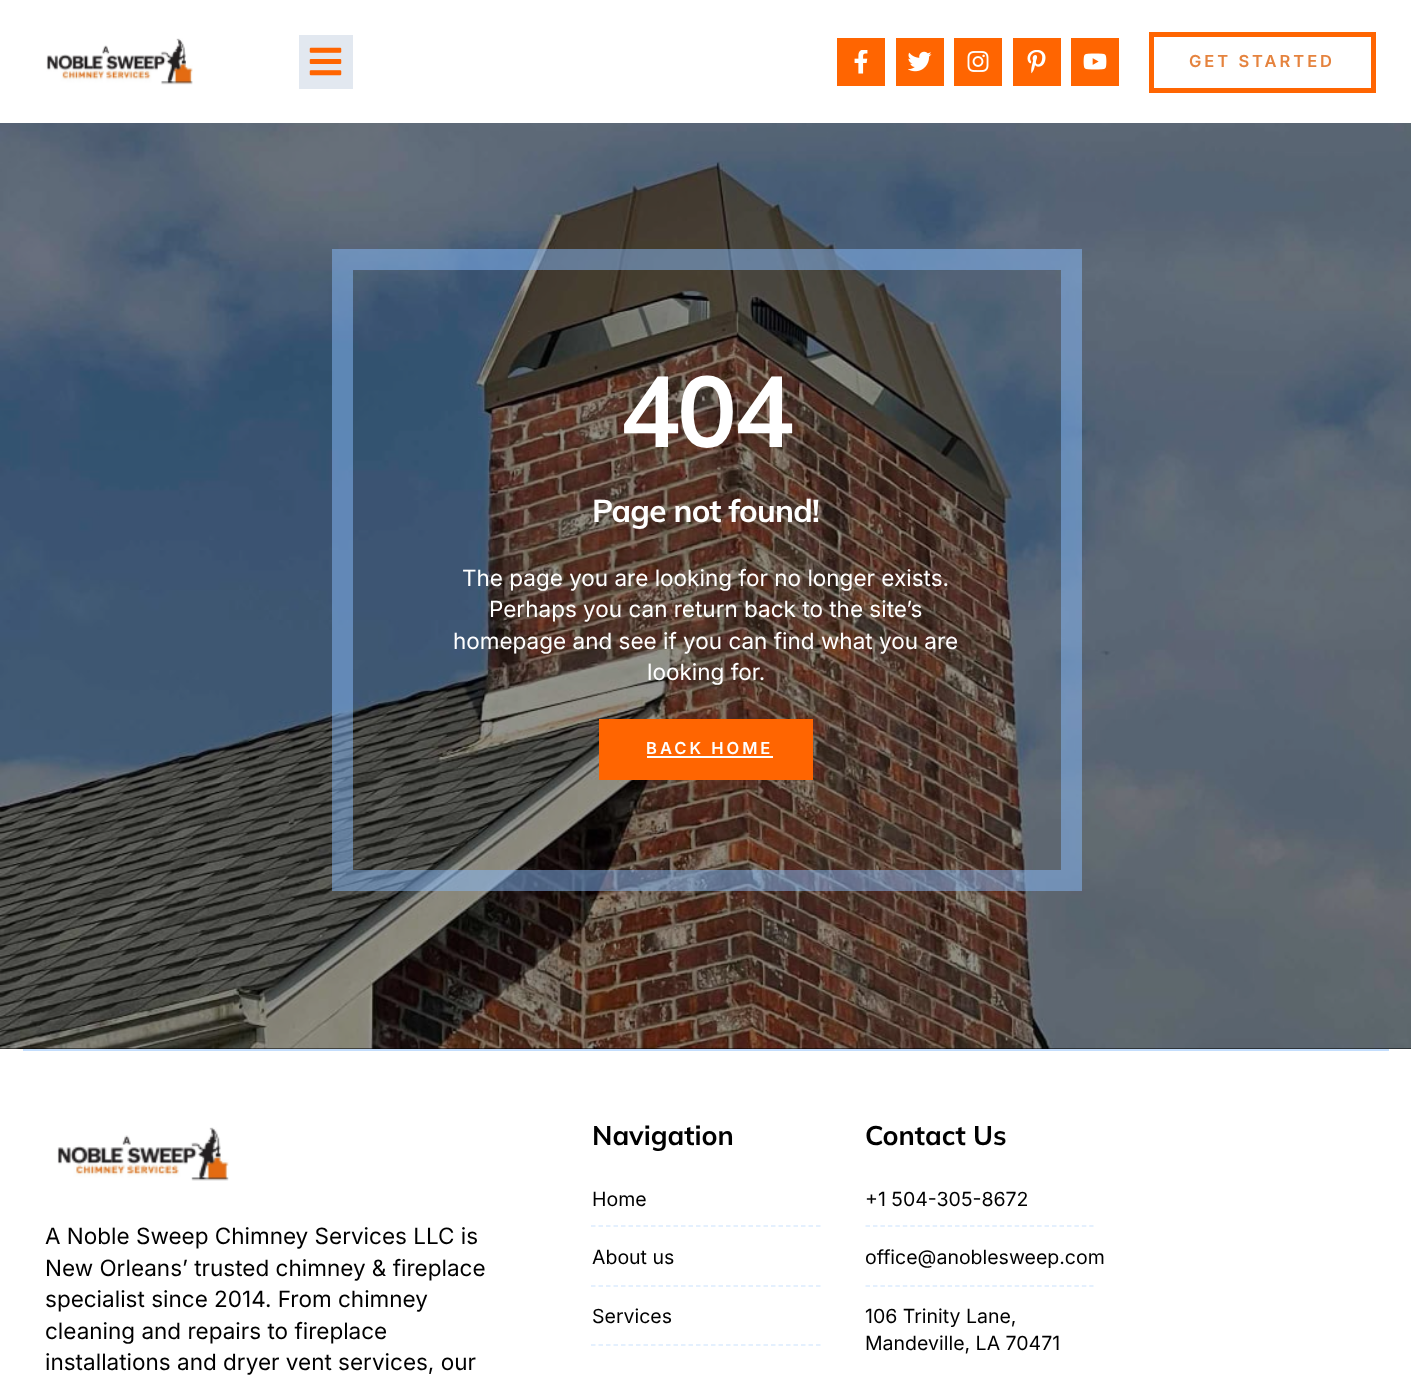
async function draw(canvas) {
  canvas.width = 1411
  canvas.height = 1377
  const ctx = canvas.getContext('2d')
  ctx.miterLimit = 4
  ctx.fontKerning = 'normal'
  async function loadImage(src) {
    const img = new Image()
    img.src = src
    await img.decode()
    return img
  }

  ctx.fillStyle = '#000'
  ctx.fillRect(0, 0, 1411, 1377)
  ctx.fillStyle = '#fff'
  ctx.fillRect(0, 0, 1411, 123)
  ctx.drawImage(await loadImage('image0.png'), 46, 38, 147, 47)
  ctx.fillStyle = '#e2e8f0'
  ctx.fillRect(299, 35, 54, 54)
  ctx.drawImage(await loadImage('image1.png'), 309, 47, 33, 29)
  ctx.fillStyle = '#ff6501'
  ctx.fillRect(837, 38, 48, 48)
  ctx.drawImage(await loadImage('image2.png'), 854, 50, 14, 24)
  ctx.fillRect(896, 38, 48, 48)
  ctx.drawImage(await loadImage('image3.png'), 908, 51, 24, 21)
  ctx.fillRect(954, 38, 48, 48)
  ctx.drawImage(await loadImage('image4.png'), 967, 51, 22, 21)
  ctx.fillRect(1013, 38, 48, 48)
  ctx.drawImage(await loadImage('image5.png'), 1027, 50, 19, 24)
  ctx.fillRect(1071, 38, 48, 48)
  ctx.drawImage(await loadImage('image6.png'), 1083, 53, 24, 17)
  ctx.strokeStyle = '#ff6501'
  ctx.lineWidth = 5
  ctx.strokeRect(1151.5, 34.5, 222, 56)
  ctx.letterSpacing = '3px'
  ctx.font = '600 16.5px Inter'
  ctx.fillStyle = '#e5833e'
  ctx.fillText('GET STARTED', 1189, 67)
  ctx.drawImage(await loadImage('image7.png'), 0, 123, 1411, 926)
  ctx.fillStyle = '#0000006b'
  ctx.fillRect(0, 123, 1411, 926)
  ctx.strokeStyle = '#88bcfb80'
  ctx.lineWidth = 21
  ctx.strokeRect(342.5, 259.5, 729, 621)
  ctx.letterSpacing = '-3px'
  ctx.font = 'bold 100px Mulish'
  ctx.fillStyle = '#fff'
  ctx.fillText('404', 620, 447)
  ctx.letterSpacing = '-0.75px'
  ctx.font = 'bold 31.5px Mulish'
  ctx.fillText('Page not found!', 592, 522)
  ctx.letterSpacing = '0px'
  ctx.font = '22.5px Inter'
  ctx.fillText('The page you are looking for no longer exists.', 462, 586)
  ctx.fillText('Perhaps you can return back to the site’s', 489, 617)
  ctx.fillText('homepage and see if you can find what you are', 453, 649)
  ctx.fillText('looking for.', 647, 680)
  ctx.fillStyle = '#ff6501'
  ctx.fillRect(599, 719, 214, 61)
  ctx.letterSpacing = '3px'
  ctx.font = '600 16.5px Inter'
  ctx.fillStyle = '#fff'
  ctx.fillText('BACK HOME', 646, 754)
  ctx.fillRect(647, 756, 126, 2)
  ctx.fillRect(0, 1049, 1411, 328)
  ctx.fillStyle = '#c4defd'
  ctx.fillRect(23, 1049, 1366, 2)
  ctx.drawImage(await loadImage('image8.png'), 57, 1127, 172, 54)
  ctx.letterSpacing = '0px'
  ctx.font = '22.5px Inter'
  ctx.fillStyle = '#000'
  ctx.fillText('A Noble Sweep Chimney Services LLC is', 45, 1244)
  ctx.fillText('New Orleans’ trusted chimney & fireplace', 45, 1276)
  ctx.fillText('specialist since 2014. From chimney', 45, 1307)
  ctx.fillText('cleaning and repairs to fireplace', 45, 1339)
  ctx.fillText('installations and dryer vent services, our', 45, 1370)
  ctx.font = 'bold 27px Mulish'
  ctx.fillText('Navigation', 592, 1145)
  ctx.font = '19.5px Inter'
  ctx.fillText('Home', 592, 1206)
  ctx.beginPath()
  ctx.moveTo(591, 1226)
  ctx.lineTo(820.5, 1226)
  ctx.strokeStyle = '#dbebfe'
  ctx.lineWidth = 1.5
  ctx.setLineDash([4.5, 3])
  ctx.stroke()
  ctx.fillText('About us', 592, 1264)
  ctx.beginPath()
  ctx.moveTo(591, 1286)
  ctx.lineTo(820.5, 1286)
  ctx.stroke()
  ctx.fillText('Services', 592, 1323)
  ctx.beginPath()
  ctx.moveTo(591, 1345)
  ctx.lineTo(820.5, 1345)
  ctx.stroke()
  ctx.font = 'bold 27px Mulish'
  ctx.fillText('Contact Us', 865, 1145)
  ctx.font = '19.5px Inter'
  ctx.fillText('+1 504-305-8672', 865, 1206)
  ctx.beginPath()
  ctx.moveTo(865.5, 1226)
  ctx.lineTo(1093.5, 1226)
  ctx.setLineDash([4.5, 2.96])
  ctx.stroke()
  ctx.fillText('office@anoblesweep.com', 865, 1264)
  ctx.beginPath()
  ctx.moveTo(865.5, 1286)
  ctx.lineTo(1093.5, 1286)
  ctx.stroke()
  ctx.fillText('106 Trinity Lane,', 865, 1323)
  ctx.fillText('Mandeville, LA 70471', 865, 1350)
}

draw(document.querySelector('canvas'))
